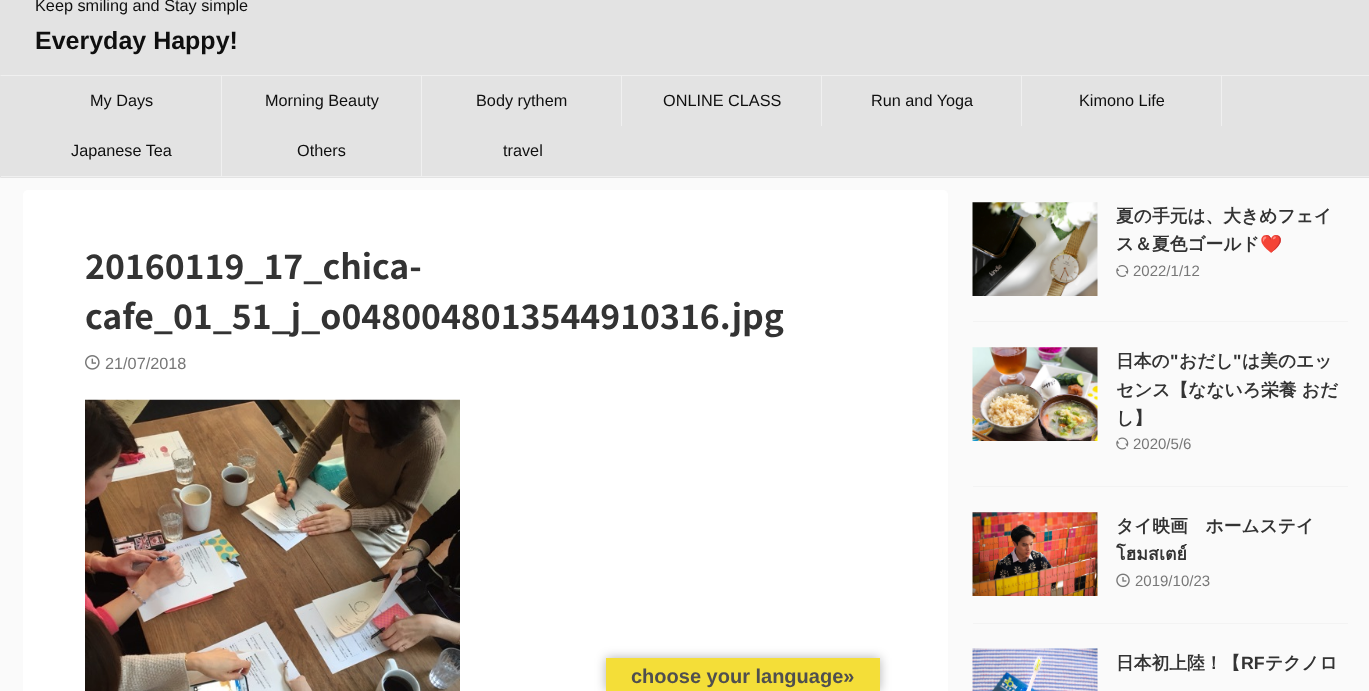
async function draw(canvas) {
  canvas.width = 1369
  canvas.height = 691
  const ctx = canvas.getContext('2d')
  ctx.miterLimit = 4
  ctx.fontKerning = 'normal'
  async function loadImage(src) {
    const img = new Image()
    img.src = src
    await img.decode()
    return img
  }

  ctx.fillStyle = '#fafafa'
  ctx.fillRect(0, 0, 1369, 691)
  ctx.fillStyle = '#e3e3e3'
  ctx.fillRect(0, 0, 1369, 75)
  ctx.font = '16.25px Liberation Sans'
  ctx.fillStyle = '#0f0f0f'
  ctx.fillText('Keep smiling and Stay simple', 35, 11)
  ctx.font = 'bold 25px Liberation Sans'
  ctx.fillText('Everyday Happy!', 35, 49)
  ctx.fillStyle = '#e3e3e3'
  ctx.beginPath()
  ctx.roundRect(0, 75, 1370, 103, 1)
  ctx.fill()
  ctx.fillStyle = '#f0f0f0'
  ctx.fillRect(1, 75, 1368, 1)
  ctx.fillRect(1, 176, 1368, 1)
  ctx.fillRect(221, 76, 1, 100)
  ctx.font = '16.25px Liberation Sans'
  ctx.fillStyle = '#0f0f0f'
  ctx.fillText('My Days', 90, 106)
  ctx.fillStyle = '#f0f0f0'
  ctx.fillRect(421, 76, 1, 100)
  ctx.fillStyle = '#0f0f0f'
  ctx.fillText('Morning Beauty', 265, 106)
  ctx.fillStyle = '#f0f0f0'
  ctx.fillRect(621, 76, 1, 50)
  ctx.fillStyle = '#0f0f0f'
  ctx.fillText('Body rythem', 476, 106)
  ctx.fillStyle = '#f0f0f0'
  ctx.fillRect(821, 76, 1, 50)
  ctx.fillStyle = '#0f0f0f'
  ctx.fillText('ONLINE CLASS', 663, 106)
  ctx.fillStyle = '#f0f0f0'
  ctx.fillRect(1021, 76, 1, 50)
  ctx.fillStyle = '#0f0f0f'
  ctx.fillText('Run and Yoga', 871, 106)
  ctx.fillStyle = '#f0f0f0'
  ctx.fillRect(1221, 76, 1, 50)
  ctx.fillStyle = '#0f0f0f'
  ctx.fillText('Kimono Life', 1079, 106)
  ctx.fillText('Japanese Tea', 71, 156)
  ctx.fillText('Others', 297, 156)
  ctx.fillText('travel', 503, 156)
  ctx.fillStyle = '#fff'
  ctx.beginPath()
  ctx.roundRect(23, 190, 925, 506, 5)
  ctx.fill()
  ctx.font = 'bold 33.75px Noto Sans JP'
  ctx.fillStyle = '#333'
  ctx.fillText('20160119_17_chica-', 85, 279)
  ctx.fillText('cafe_01_51_j_o0480048013544910316.jpg', 85, 329)
  ctx.drawImage(await loadImage('image0.png'), 85, 355, 15, 15)
  ctx.font = '16.25px Liberation Sans'
  ctx.fillStyle = '#777'
  ctx.fillText('21/07/2018', 105, 369)
  ctx.drawImage(await loadImage('image1.png'), 85, 399, 375, 292)
  ctx.fillStyle = '#f3f3f3'
  ctx.fillRect(973, 321, 375, 1)
  ctx.drawImage(await loadImage('image2.png'), 972, 202, 126, 94)
  ctx.font = 'bold 17.75px WenQuanYi Zen Hei'
  ctx.fillStyle = '#333'
  ctx.fillText('夏の手元は、大きめフェイ', 1116, 222)
  ctx.fillText('ス＆夏色ゴールド', 1116, 250)
  ctx.font = 'bold 17.75px Noto Color Emoji'
  ctx.fillText('❤️', 1260, 250)
  ctx.drawImage(await loadImage('image3.png'), 1116, 265, 13, 12)
  ctx.font = '15px Liberation Sans'
  ctx.fillStyle = '#777'
  ctx.fillText('2022/1/12', 1133, 276)
  ctx.fillStyle = '#f3f3f3'
  ctx.fillRect(973, 486, 375, 1)
  ctx.drawImage(await loadImage('image4.png'), 972, 347, 126, 94)
  ctx.font = 'bold 17.75px WenQuanYi Zen Hei'
  ctx.fillStyle = '#333'
  ctx.fillText('日本の', 1116, 367)
  ctx.font = 'bold 17.75px Liberation Sans'
  ctx.fillText('"', 1170, 367)
  ctx.font = 'bold 17.75px WenQuanYi Zen Hei'
  ctx.fillText('おだし', 1179, 367)
  ctx.font = 'bold 17.75px Liberation Sans'
  ctx.fillText('"', 1233, 367)
  ctx.font = 'bold 17.75px WenQuanYi Zen Hei'
  ctx.fillText('は美のエッ', 1242, 367)
  ctx.fillText('センス【なないろ栄養 おだ', 1116, 396)
  ctx.fillText('し】', 1116, 424)
  ctx.drawImage(await loadImage('image5.png'), 1116, 437, 13, 13)
  ctx.font = '15px Liberation Sans'
  ctx.fillStyle = '#777'
  ctx.fillText('2020/5/6', 1133, 449)
  ctx.fillStyle = '#f3f3f3'
  ctx.fillRect(973, 623, 375, 1)
  ctx.drawImage(await loadImage('image6.png'), 972, 512, 126, 84)
  ctx.font = 'bold 17.75px WenQuanYi Zen Hei'
  ctx.fillStyle = '#333'
  ctx.fillText('タイ映画　ホームステイ', 1116, 532)
  ctx.font = 'bold 17.75px Loma'
  ctx.fillText('โฮมสเตย์', 1116, 560)
  ctx.drawImage(await loadImage('image7.png'), 1116, 573, 14, 15)
  ctx.font = '15px Liberation Sans'
  ctx.fillStyle = '#777'
  ctx.fillText('2019/10/23', 1135, 586)
  ctx.drawImage(await loadImage('image8.png'), 972, 648, 126, 43)
  ctx.font = 'bold 17.75px WenQuanYi Zen Hei'
  ctx.fillStyle = '#333'
  ctx.fillText('日本初上陸！【', 1116, 669)
  ctx.font = 'bold 17.75px Liberation Sans'
  ctx.fillText('RF', 1241, 669)
  ctx.font = 'bold 17.75px WenQuanYi Zen Hei'
  ctx.fillText('テクノロ', 1265, 669)
  ctx.fillStyle = '#0000004d'
  ctx.filter = 'blur(5.5px)'
  ctx.beginPath()
  ctx.rect(606, 658, 274, 33)
  ctx.fill()
  ctx.filter = 'none'
  ctx.fillStyle = '#f4de38'
  ctx.fillRect(606, 658, 274, 33)
  ctx.font = 'bold 20px Liberation Sans'
  ctx.fillStyle = '#4f4f4f'
  ctx.fillText('choose your language»', 631, 683)
}

draw(document.querySelector('canvas'))
